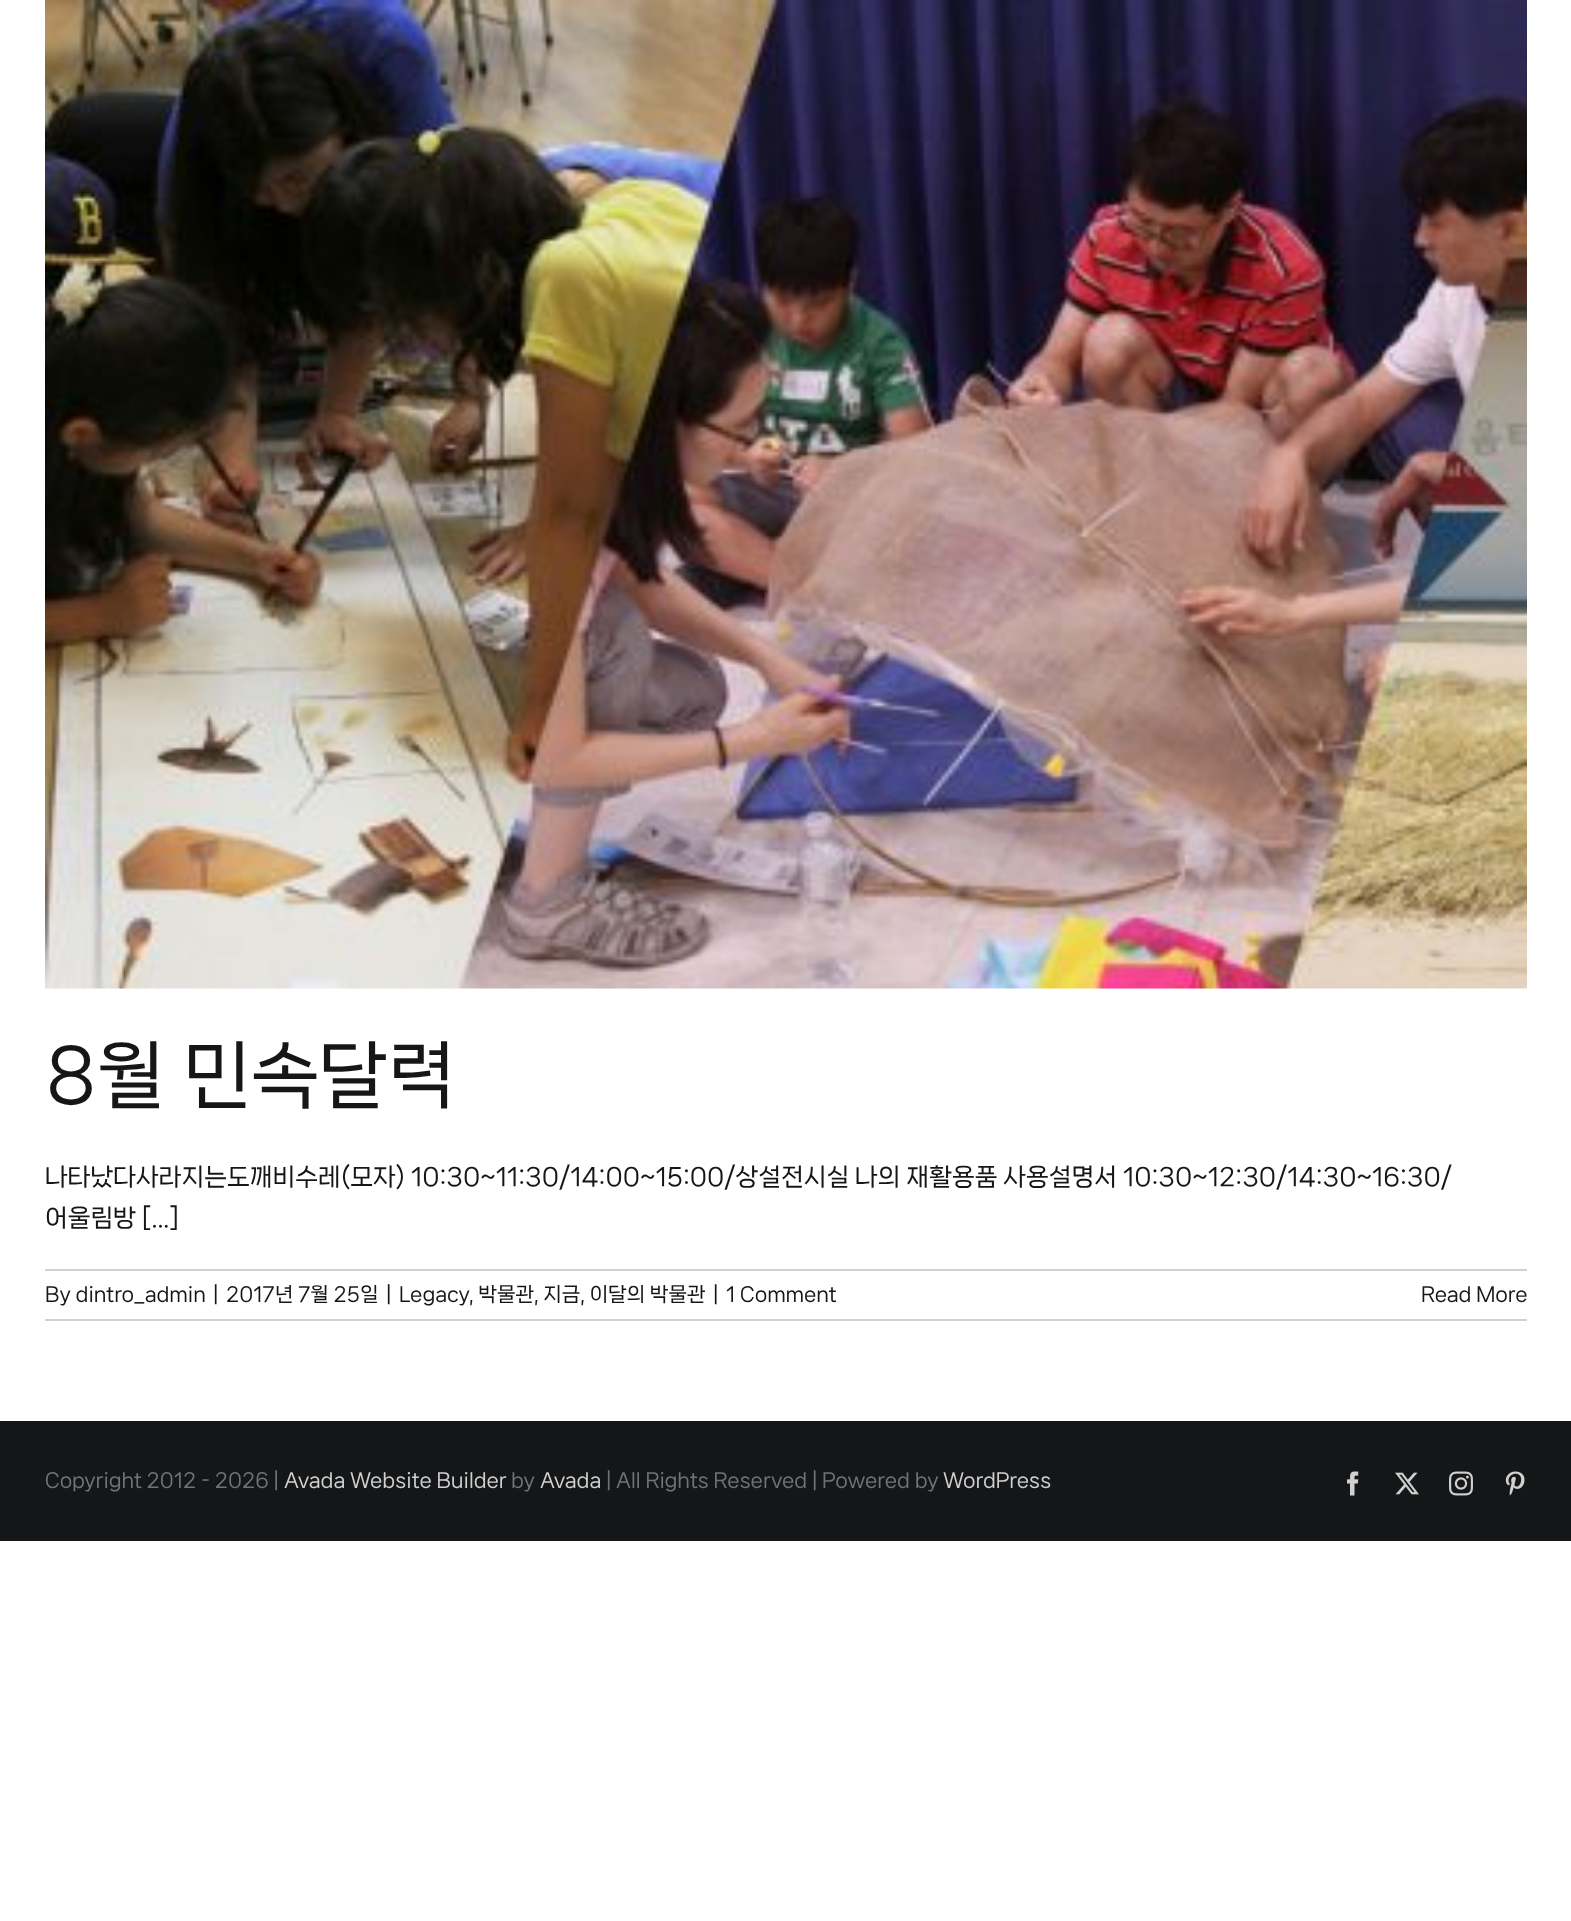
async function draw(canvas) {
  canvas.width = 1571
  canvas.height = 1921
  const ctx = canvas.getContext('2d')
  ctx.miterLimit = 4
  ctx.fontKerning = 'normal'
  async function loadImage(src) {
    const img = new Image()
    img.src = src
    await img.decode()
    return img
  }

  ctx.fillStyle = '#fff'
  ctx.fillRect(0, 0, 1571, 1921)
  ctx.drawImage(await loadImage('image0.png'), 45, 0, 1482, 989)
  ctx.font = '72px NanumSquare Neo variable'
  ctx.fillStyle = '#141617'
  ctx.fillText('8월 민속달력', 45, 1097)
  ctx.font = '24px NanumSquare Neo variable'
  ctx.fillText('나타났다사라지는도깨비수레(모자) 10:30~11:30/14:00~15:00/상설전시실 나의 재활용품 사용설명서 10:30~12:30/14:30~16:30/', 45, 1184)
  ctx.fillText('어울림방 [...]', 45, 1225)
  ctx.fillStyle = '#d1d1d1'
  ctx.fillRect(45, 1269, 1482, 2)
  ctx.fillRect(45, 1319, 1482, 2)
  ctx.font = '19.5px NanumSquare Neo variable'
  ctx.fillStyle = '#141617'
  ctx.fillText('By dintro_admin', 45, 1300)
  ctx.fillText('|', 213, 1300)
  ctx.fillText('2017년 7월 25일', 226, 1300)
  ctx.fillText('|', 386, 1300)
  ctx.fillText('Legacy', 399, 1300)
  ctx.fillText(', 박물관, 지금, 이달의 박물관', 469, 1300)
  ctx.fillText('|', 713, 1300)
  ctx.fillText('1 Comment', 726, 1300)
  ctx.fillText('Read More', 1421, 1300)
  ctx.fillRect(0, 1421, 1571, 120)
  ctx.fillStyle = '#727374'
  ctx.fillText('Copyright 2012 - 2026 |', 45, 1486)
  ctx.fillStyle = '#d0d0d1'
  ctx.fillText('Avada Website Builder', 284, 1486)
  ctx.fillStyle = '#727374'
  ctx.fillText('by', 511, 1486)
  ctx.fillStyle = '#d0d0d1'
  ctx.fillText('Avada', 540, 1486)
  ctx.fillStyle = '#727374'
  ctx.fillText('| All Rights Reserved | Powered by', 606, 1486)
  ctx.fillStyle = '#d0d0d1'
  ctx.fillText('WordPress', 943, 1486)
  ctx.drawImage(await loadImage('image1.png'), 1347, 1471, 12, 25)
  ctx.drawImage(await loadImage('image2.png'), 1395, 1472, 24, 23)
  ctx.drawImage(await loadImage('image3.png'), 1449, 1471, 24, 25)
  ctx.drawImage(await loadImage('image4.png'), 1505, 1471, 20, 25)
}

draw(document.querySelector('canvas'))
